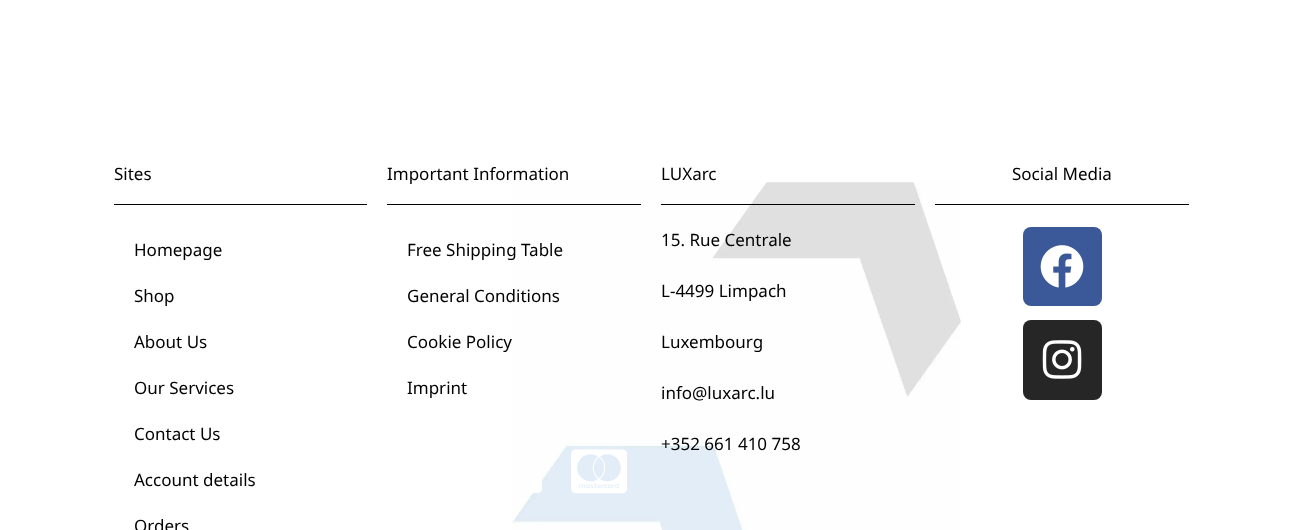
async function draw(canvas) {
  canvas.width = 1304
  canvas.height = 530
  const ctx = canvas.getContext('2d')
  ctx.miterLimit = 4
  ctx.fontKerning = 'normal'
  async function loadImage(src) {
    const img = new Image()
    img.src = src
    await img.decode()
    return img
  }

  ctx.fillStyle = '#fff'
  ctx.fillRect(0, 0, 1304, 530)
  ctx.drawImage(await loadImage('image0.png'), 512, 182, 449, 348)
  ctx.font = '17px Noto Sans'
  ctx.fillStyle = '#000'
  ctx.fillText('Sites', 114, 180)
  ctx.fillRect(114, 204, 253, 1)
  ctx.fillText('Homepage', 134, 256)
  ctx.fillText('Shop', 134, 302)
  ctx.fillText('About Us', 134, 348)
  ctx.fillText('Our Services', 134, 394)
  ctx.fillText('Contact Us', 134, 440)
  ctx.fillText('Account details', 134, 486)
  ctx.fillText('Orders', 134, 532)
  ctx.fillText('Important Information', 387, 180)
  ctx.fillRect(387, 204, 254, 1)
  ctx.fillText('Free Shipping Table', 407, 256)
  ctx.fillText('General Conditions', 407, 302)
  ctx.fillText('Cookie Policy', 407, 348)
  ctx.fillText('Imprint', 407, 394)
  ctx.drawImage(await loadImage('image1.png'), 532, 479, 10, 15)
  ctx.drawImage(await loadImage('image2.png'), 571, 449, 56, 45)
  ctx.fillText('LUXarc', 661, 180)
  ctx.fillRect(661, 204, 254, 1)
  ctx.fillText('15. Rue Centrale', 661, 246)
  ctx.fillText('L-4499 Limpach', 661, 297)
  ctx.fillText('Luxembourg', 661, 348)
  ctx.fillText('info@luxarc.lu', 661, 399)
  ctx.fillText('+352 661 410 758', 661, 450)
  ctx.fillText('Social Media', 1012, 180)
  ctx.fillRect(935, 204, 254, 1)
  ctx.fillStyle = '#3b5998'
  ctx.beginPath()
  ctx.roundRect(1023, 227, 79, 79, 8)
  ctx.fill()
  ctx.drawImage(await loadImage('image3.png'), 1040, 245, 44, 43)
  ctx.fillStyle = '#262626'
  ctx.beginPath()
  ctx.roundRect(1023, 320, 79, 80, 8)
  ctx.fill()
  ctx.drawImage(await loadImage('image4.png'), 1042, 340, 40, 39)
}

draw(document.querySelector('canvas'))
